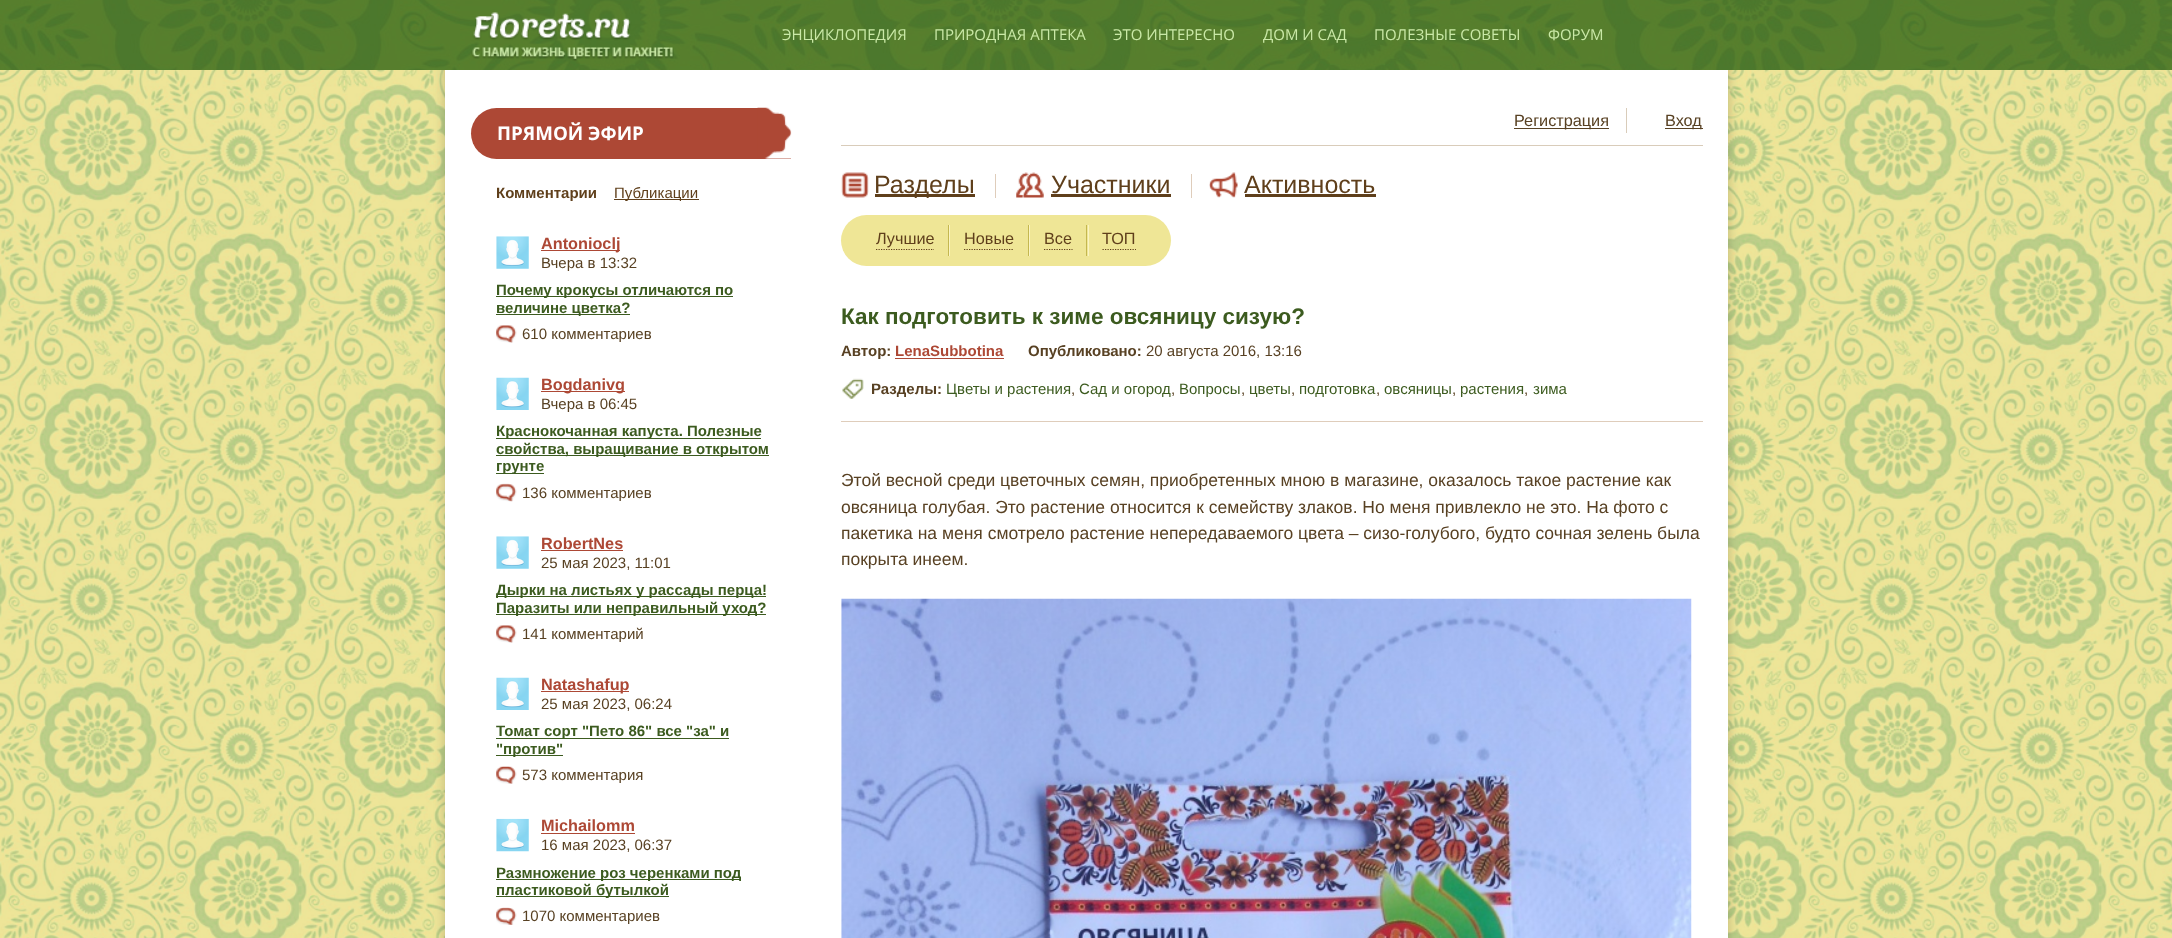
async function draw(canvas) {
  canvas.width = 2172
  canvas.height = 938
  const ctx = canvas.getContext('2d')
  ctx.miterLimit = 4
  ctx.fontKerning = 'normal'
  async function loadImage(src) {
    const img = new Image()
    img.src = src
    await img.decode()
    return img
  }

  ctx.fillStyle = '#fff'
  ctx.fillRect(0, 0, 2172, 938)
  ctx.drawImage(await loadImage('image0.png'), 0, 70, 2172, 868)
  ctx.fillStyle = '#00000033'
  ctx.filter = 'blur(6px)'
  ctx.beginPath()
  ctx.rect(445, 0, 1283, 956)
  ctx.fill()
  ctx.filter = 'none'
  ctx.drawImage(await loadImage('image1.png'), 0, 0, 2172, 70)
  ctx.drawImage(await loadImage('image2.png'), 471, 12, 203, 49)
  ctx.font = '15px Open Sans'
  ctx.fillStyle = '#cae9a7'
  ctx.fillText('ЭНЦИКЛОПЕДИЯ', 782, 40)
  ctx.fillText('ПРИРОДНАЯ АПТЕКА', 934, 40)
  ctx.fillText('ЭТО ИНТЕРЕСНО', 1113, 40)
  ctx.fillText('ДОМ И САД', 1263, 40)
  ctx.fillText('ПОЛЕЗНЫЕ СОВЕТЫ', 1374, 40)
  ctx.fillText('ФОРУМ', 1548, 40)
  ctx.fillStyle = '#fff'
  ctx.fillRect(445, 70, 1283, 868)
  ctx.fillStyle = '#ad4835'
  ctx.beginPath()
  ctx.roundRect(471, 108, 320, 51, [25.5, 0, 0, 25.5])
  ctx.fill()
  ctx.drawImage(await loadImage('image3.png'), 757, 107, 35, 52)
  ctx.font = 'bold 18.75px Open Sans'
  ctx.fillStyle = '#fff'
  ctx.fillText('ПРЯМОЙ ЭФИР', 497, 140)
  ctx.font = 'bold 15px Liberation Sans'
  ctx.fillStyle = '#5f3f1b'
  ctx.fillText('Комментарии', 496, 198)
  ctx.fillRect(614, 199, 85, 1)
  ctx.font = '15px Liberation Sans'
  ctx.fillText('Публикации', 614, 198)
  ctx.drawImage(await loadImage('image4.png'), 496, 236, 33, 33)
  ctx.fillStyle = '#ad4835'
  ctx.fillRect(541, 250, 79, 1)
  ctx.font = 'bold 16.25px Liberation Sans'
  ctx.fillText('Antonioclj', 541, 249)
  ctx.font = '15px Liberation Sans'
  ctx.fillStyle = '#584123'
  ctx.fillText('Вчера в 13:32', 541, 268)
  ctx.fillStyle = '#3c5b1f'
  ctx.fillRect(496, 296, 237, 1)
  ctx.font = 'bold 15px Liberation Sans'
  ctx.fillText('Почему крокусы отличаются по', 496, 295)
  ctx.fillRect(496, 314, 134, 1)
  ctx.fillText('величине цветка?', 496, 313)
  ctx.drawImage(await loadImage('image5.png'), 496, 325, 21, 18)
  ctx.font = '15px Liberation Sans'
  ctx.fillStyle = '#584123'
  ctx.fillText('610 комментариев', 522, 339)
  ctx.drawImage(await loadImage('image6.png'), 496, 377, 33, 33)
  ctx.fillStyle = '#ad4835'
  ctx.fillRect(541, 391, 84, 1)
  ctx.font = 'bold 16.25px Liberation Sans'
  ctx.fillText('Bogdanivg', 541, 390)
  ctx.font = '15px Liberation Sans'
  ctx.fillStyle = '#584123'
  ctx.fillText('Вчера в 06:45', 541, 409)
  ctx.fillStyle = '#3c5b1f'
  ctx.fillRect(496, 438, 265, 1)
  ctx.font = 'bold 15px Liberation Sans'
  ctx.fillText('Краснокочанная капуста. Полезные', 496, 436)
  ctx.fillRect(496, 455, 273, 1)
  ctx.fillText('свойства, выращивание в открытом', 496, 454)
  ctx.fillRect(496, 473, 48, 1)
  ctx.fillText('грунте', 496, 471)
  ctx.drawImage(await loadImage('image7.png'), 496, 483, 21, 19)
  ctx.font = '15px Liberation Sans'
  ctx.fillStyle = '#584123'
  ctx.fillText('136 комментариев', 522, 498)
  ctx.drawImage(await loadImage('image4.png'), 496, 536, 33, 33)
  ctx.font = 'bold 16.25px Liberation Sans'
  ctx.fillStyle = '#ad4835'
  ctx.fillText('RobertNes', 541, 549)
  ctx.fillRect(541, 550, 82, 1)
  ctx.font = '15px Liberation Sans'
  ctx.fillStyle = '#584123'
  ctx.fillText('25 мая 2023, 11:01', 541, 568)
  ctx.fillStyle = '#3c5b1f'
  ctx.fillRect(496, 596, 270, 1)
  ctx.font = 'bold 15px Liberation Sans'
  ctx.fillText('Дырки на листьях у рассады перца!', 496, 595)
  ctx.fillRect(496, 614, 270, 1)
  ctx.fillText('Паразиты или неправильный уход?', 496, 613)
  ctx.drawImage(await loadImage('image5.png'), 496, 625, 21, 18)
  ctx.font = '15px Liberation Sans'
  ctx.fillStyle = '#584123'
  ctx.fillText('141 комментарий', 522, 639)
  ctx.drawImage(await loadImage('image6.png'), 496, 677, 33, 33)
  ctx.fillStyle = '#ad4835'
  ctx.fillRect(541, 691, 88, 1)
  ctx.font = 'bold 16.25px Liberation Sans'
  ctx.fillText('Natashafup', 541, 690)
  ctx.font = '15px Liberation Sans'
  ctx.fillStyle = '#584123'
  ctx.fillText('25 мая 2023, 06:24', 541, 709)
  ctx.fillStyle = '#3c5b1f'
  ctx.fillRect(496, 738, 233, 1)
  ctx.font = 'bold 15px Liberation Sans'
  ctx.fillText('Томат сорт "Пето 86" все "за" и', 496, 736)
  ctx.fillRect(496, 755, 67, 1)
  ctx.fillText('"против"', 496, 754)
  ctx.drawImage(await loadImage('image8.png'), 496, 766, 21, 18)
  ctx.font = '15px Liberation Sans'
  ctx.fillStyle = '#584123'
  ctx.fillText('573 комментария', 522, 780)
  ctx.drawImage(await loadImage('image9.png'), 496, 818, 33, 34)
  ctx.font = 'bold 16.25px Liberation Sans'
  ctx.fillStyle = '#ad4835'
  ctx.fillText('Michailomm', 541, 831)
  ctx.fillRect(541, 833, 94, 1)
  ctx.font = '15px Liberation Sans'
  ctx.fillStyle = '#584123'
  ctx.fillText('16 мая 2023, 06:37', 541, 850)
  ctx.fillStyle = '#3c5b1f'
  ctx.fillRect(496, 879, 245, 1)
  ctx.font = 'bold 15px Liberation Sans'
  ctx.fillText('Размножение роз черенками под', 496, 878)
  ctx.fillRect(496, 896, 173, 1)
  ctx.fillText('пластиковой бутылкой', 496, 895)
  ctx.drawImage(await loadImage('image10.png'), 496, 907, 21, 18)
  ctx.font = '15px Liberation Sans'
  ctx.fillStyle = '#584123'
  ctx.fillText('1070 комментариев', 522, 921)
  ctx.fillStyle = '#d9ccba'
  ctx.fillRect(841, 145, 862, 1)
  ctx.fillStyle = '#584123'
  ctx.fillRect(1514, 128, 95, 1)
  ctx.font = '16.25px Liberation Sans'
  ctx.fillText('Регистрация', 1514, 126)
  ctx.fillStyle = '#d9ccba'
  ctx.fillRect(1626, 108, 1, 25)
  ctx.fillStyle = '#584123'
  ctx.fillRect(1665, 128, 38, 1)
  ctx.fillText('Вход', 1665, 126)
  ctx.drawImage(await loadImage('image11.png'), 841, 172, 28, 26)
  ctx.fillStyle = '#5f3f1b'
  ctx.fillRect(875, 194, 100, 3)
  ctx.font = '25px Liberation Sans'
  ctx.fillText('Разделы', 874, 193)
  ctx.fillStyle = '#dfcdbb'
  ctx.fillRect(995, 174, 1, 24)
  ctx.drawImage(await loadImage('image12.png'), 1016, 172, 28, 26)
  ctx.fillStyle = '#5f3f1b'
  ctx.fillText('Участники', 1051, 193)
  ctx.fillRect(1051, 194, 120, 3)
  ctx.fillStyle = '#dfcdbb'
  ctx.fillRect(1191, 174, 1, 24)
  ctx.drawImage(await loadImage('image13.png'), 1209, 172, 29, 26)
  ctx.fillStyle = '#5f3f1b'
  ctx.fillText('Активность', 1244, 193)
  ctx.fillRect(1245, 194, 131, 3)
  ctx.fillStyle = '#efe696'
  ctx.beginPath()
  ctx.roundRect(841, 215, 330, 51, 25.5)
  ctx.fill()
  ctx.beginPath()
  ctx.moveTo(876, 249.5)
  ctx.lineTo(934, 249.5)
  ctx.strokeStyle = '#5f3f1b'
  ctx.lineWidth = 1.2
  ctx.setLineDash([1.25, 1.25])
  ctx.stroke()
  ctx.font = '16.25px Liberation Sans'
  ctx.fillStyle = '#5f3f1b'
  ctx.fillText('Лучшие', 876, 244)
  ctx.fillStyle = '#faf4c3'
  ctx.fillRect(949, 225, 1, 31)
  ctx.fillStyle = '#c4b74f'
  ctx.fillRect(948, 225, 1, 31)
  ctx.beginPath()
  ctx.moveTo(964, 249.5)
  ctx.lineTo(1014, 249.5)
  ctx.stroke()
  ctx.fillStyle = '#5f3f1b'
  ctx.fillText('Новые', 964, 244)
  ctx.fillStyle = '#faf4c3'
  ctx.fillRect(1029, 225, 1, 31)
  ctx.fillStyle = '#c4b74f'
  ctx.fillRect(1028, 225, 1, 31)
  ctx.beginPath()
  ctx.moveTo(1044, 249.5)
  ctx.lineTo(1072.5, 249.5)
  ctx.stroke()
  ctx.fillStyle = '#5f3f1b'
  ctx.fillText('Все', 1044, 244)
  ctx.fillStyle = '#faf4c3'
  ctx.fillRect(1088, 225, 1, 31)
  ctx.fillStyle = '#c4b74f'
  ctx.fillRect(1086, 225, 1, 31)
  ctx.beginPath()
  ctx.moveTo(1102.5, 249.5)
  ctx.lineTo(1136, 249.5)
  ctx.stroke()
  ctx.fillStyle = '#5f3f1b'
  ctx.fillText('ТОП', 1102, 244)
  ctx.fillStyle = '#dfcdbb'
  ctx.fillRect(841, 421, 862, 1)
  ctx.font = 'bold 22.5px Liberation Sans'
  ctx.fillStyle = '#3c5b1f'
  ctx.fillText('Как подготовить к зиме овсяницу сизую?', 841, 324)
  ctx.font = 'bold 15px Liberation Sans'
  ctx.fillStyle = '#584123'
  ctx.fillText('Автор:', 841, 356)
  ctx.fillStyle = '#ad4835'
  ctx.fillText('LenaSubbotina', 895, 356)
  ctx.fillRect(895, 358, 109, 1)
  ctx.fillStyle = '#584123'
  ctx.fillText('Опубликовано:', 1028, 356)
  ctx.font = '15px Liberation Sans'
  ctx.fillText('20 августа 2016, 13:16', 1146, 356)
  ctx.drawImage(await loadImage('image14.png'), 842, 378, 22, 21)
  ctx.font = 'bold 15px Liberation Sans'
  ctx.fillText('Разделы:', 871, 394)
  ctx.font = '15px Liberation Sans'
  ctx.fillStyle = '#3c5b1f'
  ctx.fillText('Цветы и растения', 946, 394)
  ctx.fillStyle = '#584123'
  ctx.fillText(',', 1071, 394)
  ctx.fillStyle = '#3c5b1f'
  ctx.fillText('Сад и огород', 1079, 394)
  ctx.fillStyle = '#584123'
  ctx.fillText(',', 1171, 394)
  ctx.fillStyle = '#3c5b1f'
  ctx.fillText('Вопросы', 1179, 394)
  ctx.fillStyle = '#584123'
  ctx.fillText(',', 1241, 394)
  ctx.fillStyle = '#3c5b1f'
  ctx.fillText('цветы', 1249, 394)
  ctx.fillStyle = '#584123'
  ctx.fillText(',', 1291, 394)
  ctx.fillStyle = '#3c5b1f'
  ctx.fillText('подготовка', 1299, 394)
  ctx.fillStyle = '#584123'
  ctx.fillText(',', 1376, 394)
  ctx.fillStyle = '#3c5b1f'
  ctx.fillText('овсяницы', 1384, 394)
  ctx.fillStyle = '#584123'
  ctx.fillText(',', 1452, 394)
  ctx.fillStyle = '#3c5b1f'
  ctx.fillText('растения', 1460, 394)
  ctx.fillStyle = '#584123'
  ctx.fillText(',', 1524, 394)
  ctx.fillStyle = '#3c5b1f'
  ctx.fillText('зима', 1533, 394)
  ctx.font = '17.5px Liberation Sans'
  ctx.fillStyle = '#584123'
  ctx.fillText('Этой весной среди цветочных семян, приобретенных мною в магазине, оказалось такое растение как', 841, 486)
  ctx.fillText('овсяница голубая. Это растение относится к семейству злаков. Но меня привлекло не это. На фото с', 841, 513)
  ctx.fillText('пакетика на меня смотрело растение непередаваемого цвета – сизо-голубого, будто сочная зелень была', 841, 539)
  ctx.fillText('покрыта инеем.', 841, 565)
  ctx.drawImage(await loadImage('image15.png'), 841, 598, 851, 340)
}

draw(document.querySelector('canvas'))
